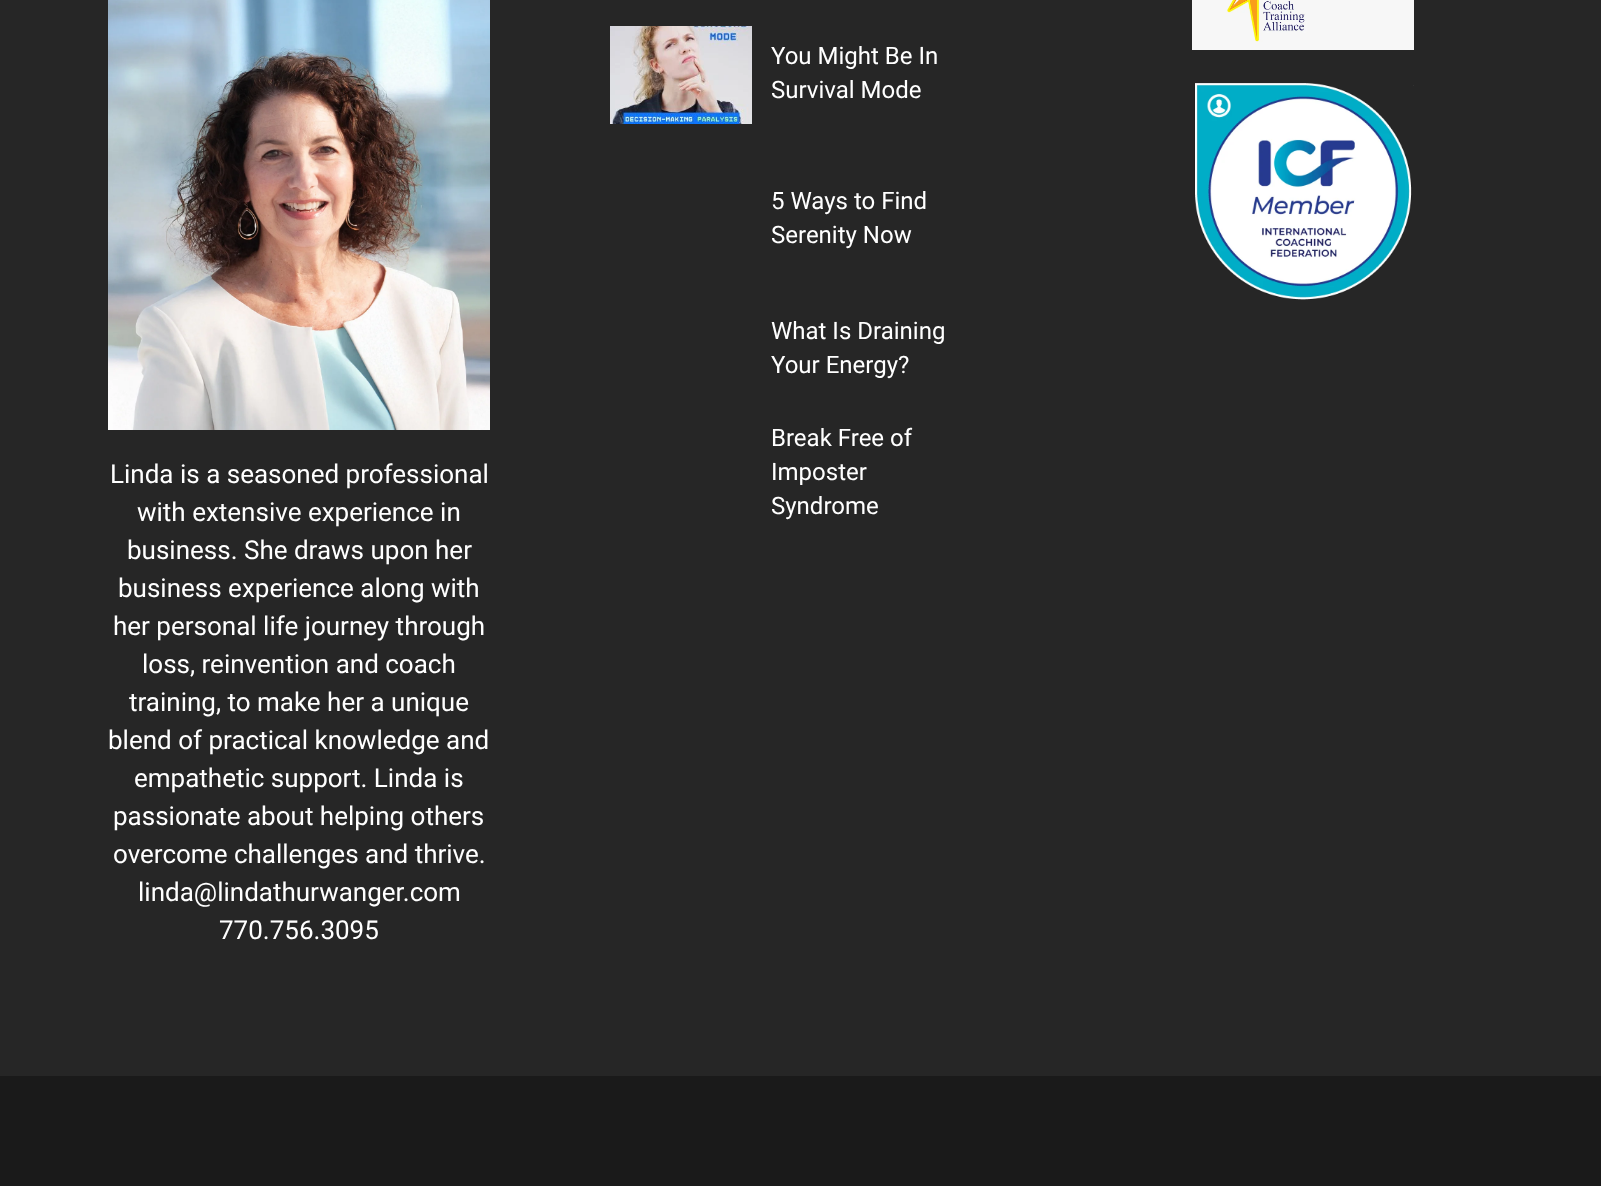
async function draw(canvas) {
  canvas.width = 1601
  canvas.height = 1186
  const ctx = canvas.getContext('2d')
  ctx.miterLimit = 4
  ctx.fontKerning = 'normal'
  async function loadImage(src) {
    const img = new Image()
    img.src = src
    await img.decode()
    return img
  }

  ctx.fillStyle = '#262626'
  ctx.fillRect(0, 0, 1601, 1186)
  ctx.drawImage(await loadImage('image0.png'), 610, 26, 142, 98)
  ctx.font = '24px Roboto'
  ctx.fillStyle = '#fff'
  ctx.fillText('You Might Be In', 771, 64)
  ctx.fillText('Survival Mode', 771, 98)
  ctx.fillText('5 Ways to Find', 771, 209)
  ctx.fillText('Serenity Now', 771, 243)
  ctx.fillText('What Is Draining', 771, 339)
  ctx.fillText('Your Energy?', 771, 373)
  ctx.fillText('Break Free of', 771, 446)
  ctx.fillText('Imposter', 771, 480)
  ctx.fillText('Syndrome', 771, 514)
  ctx.drawImage(await loadImage('image1.png'), 1192, 0, 222, 50)
  ctx.drawImage(await loadImage('image2.png'), 1194, 83, 220, 217)
  ctx.drawImage(await loadImage('image3.png'), 108, 0, 382, 430)
  ctx.font = '26px Roboto'
  ctx.fillText('Linda is a seasoned professional', 110, 483)
  ctx.fillText('with extensive experience in', 137, 521)
  ctx.fillText('business. She draws upon her', 127, 559)
  ctx.fillText('business experience along with', 118, 597)
  ctx.fillText('her personal life journey through', 113, 635)
  ctx.fillText('loss, reinvention and coach', 142, 673)
  ctx.fillText('training, to make her a unique', 129, 711)
  ctx.fillText('blend of practical knowledge and', 108, 749)
  ctx.fillText('empathetic support. Linda is', 134, 787)
  ctx.fillText('passionate about helping others', 113, 825)
  ctx.fillText('overcome challenges and thrive.', 113, 863)
  ctx.fillText('linda@lindathurwanger.com', 138, 901)
  ctx.fillText('770.756.3095', 219, 939)
  ctx.fillStyle = '#1a1a1a'
  ctx.fillRect(0, 1076, 1601, 110)
}

draw(document.querySelector('canvas'))
